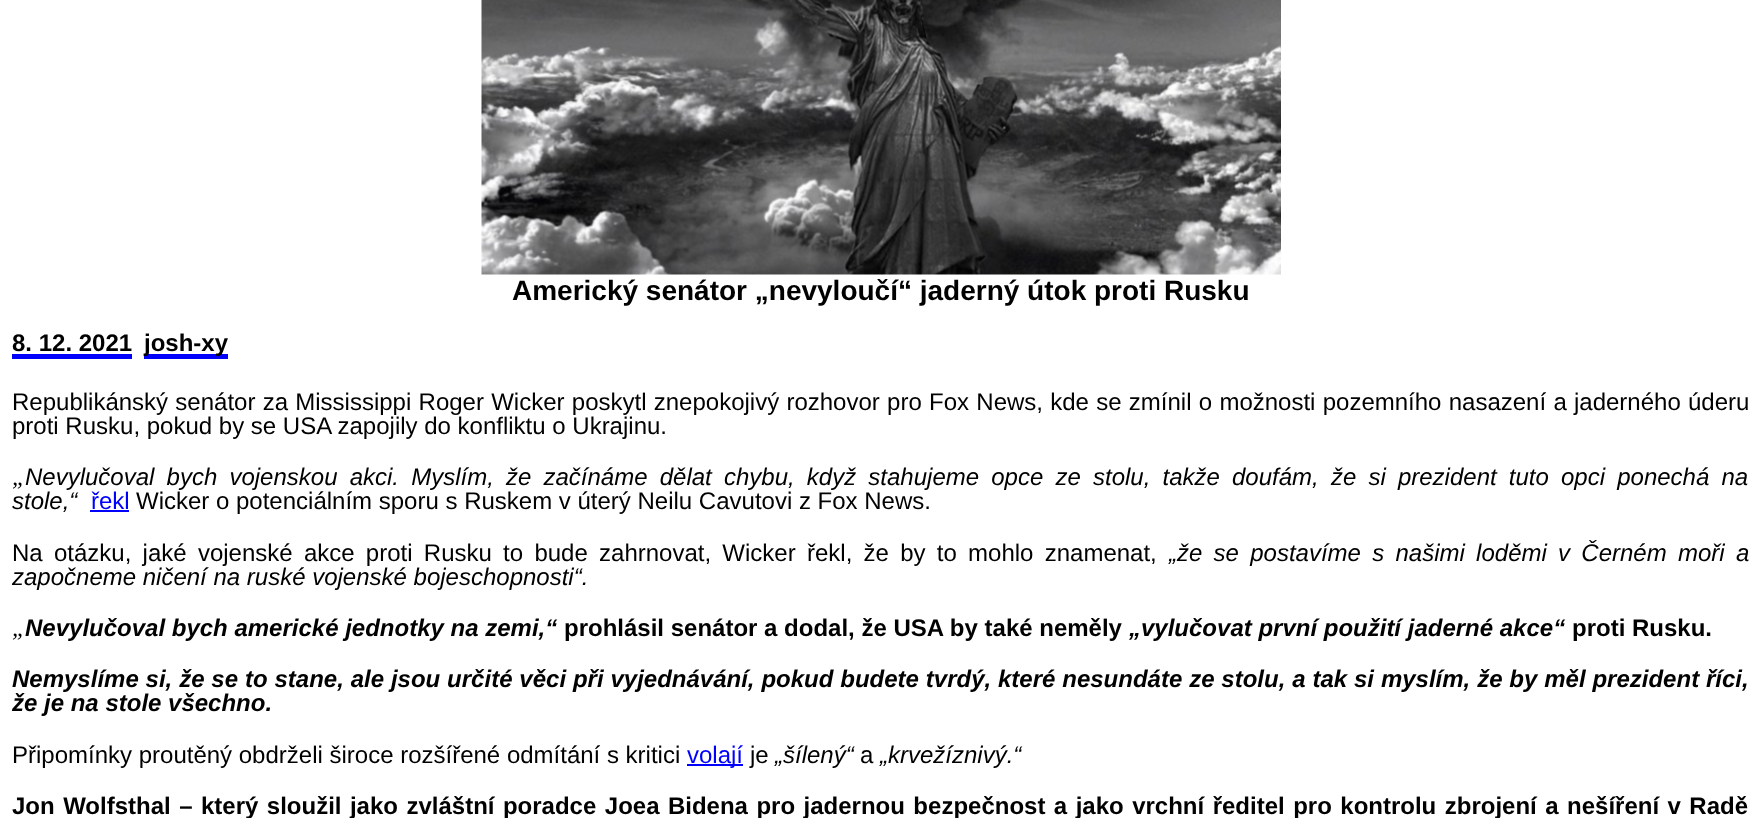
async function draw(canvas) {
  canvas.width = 1761
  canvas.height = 818
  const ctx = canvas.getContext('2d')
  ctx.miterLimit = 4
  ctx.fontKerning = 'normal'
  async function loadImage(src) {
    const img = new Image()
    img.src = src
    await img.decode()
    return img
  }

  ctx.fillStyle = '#fff'
  ctx.fillRect(0, 0, 1761, 818)
  ctx.drawImage(await loadImage('image0.png'), 481, 0, 800, 275)
  ctx.font = 'bold 28px Liberation Sans'
  ctx.fillStyle = '#000'
  ctx.fillText('Americký senátor „nevyloučí“ jaderný útok proti Rusku', 512, 300)
  ctx.font = 'bold 24px Liberation Sans'
  ctx.fillText('8. 12. 2021', 12, 351)
  ctx.fillStyle = '#00f'
  ctx.fillRect(12, 354, 120, 5)
  ctx.fillRect(144, 354, 84, 5)
  ctx.fillStyle = '#000'
  ctx.fillText('josh-xy', 144, 351)
  ctx.wordSpacing = '0.6px'
  ctx.font = '24px Liberation Sans'
  ctx.fillText('Republikánský senátor za Mississippi Roger Wicker poskytl znepokojivý rozhovor pro Fox News, kde se zmínil o možnosti pozemního nasazení a jaderného úderu', 12, 410)
  ctx.wordSpacing = '0px'
  ctx.fillText('proti Rusku, pokud by se USA zapojily do konfliktu o Ukrajinu.', 12, 434)
  ctx.font = 'italic 24px Liberation Serif'
  ctx.fillText('„', 12, 485)
  ctx.wordSpacing = '5.5px'
  ctx.font = 'italic 24px Liberation Sans'
  ctx.fillText('Nevylučoval bych vojenskou akci. Myslím, že začínáme dělat chybu, když stahujeme opce ze stolu, takže doufám, že si prezident tuto opci ponechá na', 25, 485)
  ctx.wordSpacing = '0px'
  ctx.fillText('stole,“', 12, 509)
  ctx.font = '24px Liberation Sans'
  ctx.fillStyle = '#00f'
  ctx.fillText('řekl', 91, 509)
  ctx.fillRect(90, 510, 39, 2)
  ctx.fillStyle = '#000'
  ctx.fillText('Wicker o potenciálním sporu s Ruskem v úterý Neilu Cavutovi z Fox News.', 136, 509)
  ctx.wordSpacing = '4.6px'
  ctx.fillText('Na otázku, jaké vojenské akce proti Rusku to bude zahrnovat, Wicker řekl, že by to mohlo znamenat,', 12, 561)
  ctx.font = 'italic 24px Liberation Sans'
  ctx.fillText('„že se postavíme s našimi loděmi v Černém moři a', 1169, 561)
  ctx.wordSpacing = '0px'
  ctx.fillText('započneme ničení na ruské vojenské bojeschopnosti“.', 12, 585)
  ctx.font = 'italic 24px Liberation Serif'
  ctx.fillText('„', 12, 636)
  ctx.font = 'italic bold 24px Liberation Sans'
  ctx.fillText('Nevylučoval bych americké jednotky na zemi,“', 25, 636)
  ctx.font = 'bold 24px Liberation Sans'
  ctx.fillText('prohlásil senátor a dodal, že USA by také neměly', 564, 636)
  ctx.font = 'italic bold 24px Liberation Sans'
  ctx.fillText('„vylučovat první použití jaderné akce“', 1129, 636)
  ctx.font = 'bold 24px Liberation Sans'
  ctx.fillText('proti Rusku.', 1572, 636)
  ctx.wordSpacing = '0.2px'
  ctx.font = 'italic bold 24px Liberation Sans'
  ctx.fillText('Nemyslíme si, že se to stane, ale jsou určité věci při vyjednávání, pokud budete tvrdý, které nesundáte ze stolu, a tak si myslím, že by měl prezident říci,', 12, 687)
  ctx.wordSpacing = '0px'
  ctx.fillText('že je na stole všechno.', 12, 711)
  ctx.font = '24px Liberation Sans'
  ctx.fillText('Připomínky proutěný obdrželi široce rozšířené odmítání s kritici', 12, 763)
  ctx.fillStyle = '#00f'
  ctx.fillRect(687, 764, 56, 2)
  ctx.fillText('volají', 687, 763)
  ctx.fillStyle = '#000'
  ctx.fillText('je', 750, 763)
  ctx.font = 'italic 24px Liberation Sans'
  ctx.fillText('„šílený“', 775, 763)
  ctx.font = '24px Liberation Sans'
  ctx.fillText('a', 860, 763)
  ctx.font = 'italic 24px Liberation Sans'
  ctx.fillText('„krvežíznivý.“', 880, 763)
  ctx.wordSpacing = '1.8px'
  ctx.font = 'bold 24px Liberation Sans'
  ctx.fillText('Jon Wolfsthal – který sloužil jako zvláštní poradce Joea Bidena pro jadernou bezpečnost a jako vrchní ředitel pro kontrolu zbrojení a nešíření v Radě', 12, 814)
}

draw(document.querySelector('canvas'))
